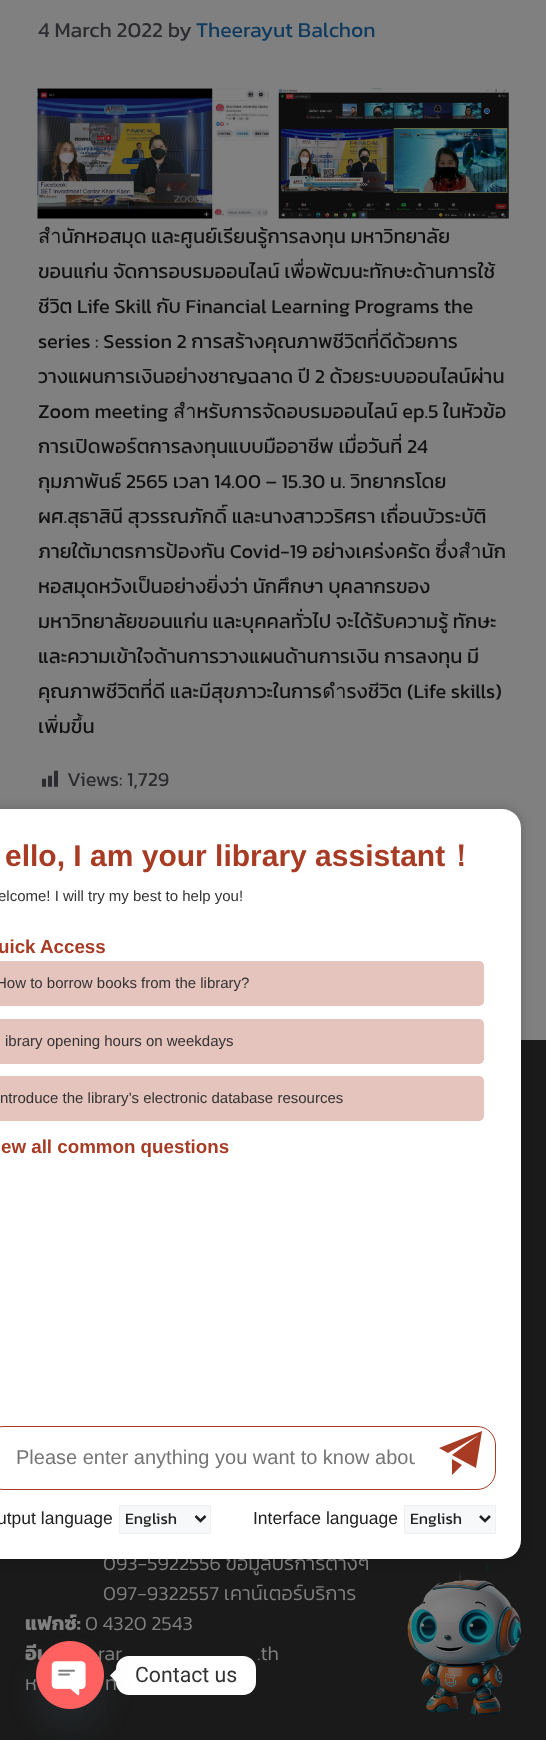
async function draw(canvas) {
  canvas.width = 546
  canvas.height = 1740
  const ctx = canvas.getContext('2d')
  ctx.miterLimit = 4
  ctx.fontKerning = 'normal'
  async function loadImage(src) {
    const img = new Image()
    img.src = src
    await img.decode()
    return img
  }

  ctx.fillStyle = '#808080'
  ctx.fillRect(0, 0, 546, 1740)
  ctx.font = '21.25px Kanit'
  ctx.fillStyle = '#2c2c30'
  ctx.fillText('4 March 2022 by', 38, 37)
  ctx.fillStyle = '#0f3a5f'
  ctx.fillText('Theerayut Balchon', 196, 37)
  ctx.drawImage(await loadImage('image0.png'), 37, 88, 232, 131)
  ctx.drawImage(await loadImage('image1.png'), 278, 88, 231, 131)
  ctx.font = '20px Kanit'
  ctx.fillStyle = '#111'
  ctx.fillText('สำนักหอสมุด และศูนย์เรียนรู้การลงทุน มหาวิทยาลัย', 38, 243)
  ctx.fillText('ขอนแก่น จัดการอบรมออนไลน์ เพื่อพัฒนะทักษะด้านการใช้', 38, 278)
  ctx.fillText('ชีวิต Life Skill กับ Financial Learning Programs the', 38, 313)
  ctx.fillText('series : Session 2 การสร้างคุณภาพชีวิตที่ดีด้วยการ', 38, 348)
  ctx.fillText('วางแผนการเงินอย่างชาญฉลาด ปี 2 ด้วยระบบออนไลน์ผ่าน', 38, 383)
  ctx.fillText('Zoom meeting สำหรับการจัดอบรมออนไลน์ ep.5 ในหัวข้อ', 38, 418)
  ctx.fillText('การเปิดพอร์ตการลงทุนแบบมืออาชีพ เมื่อวันที่ 24', 38, 453)
  ctx.fillText('กุมภาพันธ์ 2565 เวลา 14.00 – 15.30 น. วิทยากรโดย', 38, 488)
  ctx.fillText('ผศ.สุธาสินี สุวรรณภักดิ์ และนางสาววริศรา เถื่อนบัวระบัติ', 38, 523)
  ctx.fillText('ภายใต้มาตรการป้องกัน Covid-19 อย่างเคร่งครัด ซึ่งสำนัก', 38, 558)
  ctx.fillText('หอสมุดหวังเป็นอย่างยิ่งว่า นักศึกษา บุคลากรของ', 38, 593)
  ctx.fillText('มหาวิทยาลัยขอนแก่น และบุคคลทั่วไป จะได้รับความรู้ ทักษะ', 38, 628)
  ctx.fillText('และความเข้าใจด้านการวางแผนด้านการเงิน การลงทุน มี', 38, 663)
  ctx.fillText('คุณภาพชีวิตที่ดี และมีสุขภาวะในการดำรงชีวิต (Life skills)', 38, 698)
  ctx.fillText('เพิ่มขึ้น', 38, 733)
  ctx.drawImage(await loadImage('image2.png'), 42, 770, 16, 17)
  ctx.fillStyle = '#2c2c30'
  ctx.fillText('Views: 1,729', 67, 786)
  ctx.fillStyle = '#1a1a1a'
  ctx.fillRect(0, 1040, 546, 700)
  ctx.drawImage(await loadImage('image3.png'), 407, 1565, 115, 150)
  ctx.fillStyle = '#00000033'
  ctx.filter = 'blur(6px)'
  ctx.beginPath()
  ctx.roundRect(-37, 809, 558, 750, 19)
  ctx.fill()
  ctx.filter = 'none'
  ctx.font = '300 20px Kanit'
  ctx.fillStyle = '#808080'
  ctx.fillText('093-5922556 ข้อมูลบริการต่างๆ', 103, 1570)
  ctx.fillStyle = '#fff'
  ctx.beginPath()
  ctx.roundRect(-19, 809, 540, 750, 19)
  ctx.fill()
  ctx.font = 'bold 30px Liberation Sans'
  ctx.fillStyle = '#a73b24'
  ctx.fillText('ello, I am your library assistant', 5, 866)
  ctx.font = 'bold 30px WenQuanYi Zen Hei'
  ctx.fillText('！', 446, 866)
  ctx.font = '15px Liberation Sans'
  ctx.fillStyle = '#333'
  ctx.fillText('elcome! I will try my best to help you!', -2, 901)
  ctx.font = 'bold 18.75px Liberation Sans'
  ctx.fillStyle = '#a73b24'
  ctx.fillText('uick Access', -2, 953)
  ctx.fillStyle = '#e5c4bd'
  ctx.beginPath()
  ctx.roundRect(-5, 961, 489, 45, 5)
  ctx.fill()
  ctx.font = '15px Liberation Sans'
  ctx.fillStyle = '#333'
  ctx.fillText('How to borrow books from the library?', -4, 988)
  ctx.fillStyle = '#e5c4bd'
  ctx.beginPath()
  ctx.roundRect(-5, 1019, 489, 45, 5)
  ctx.fill()
  ctx.fillStyle = '#333'
  ctx.fillText('ibrary opening hours on weekdays', 5, 1046)
  ctx.fillStyle = '#e5c4bd'
  ctx.beginPath()
  ctx.roundRect(-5, 1076, 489, 45, 5)
  ctx.fill()
  ctx.fillStyle = '#333'
  ctx.fillText('ntroduce the library’s electronic database resources', 0, 1103)
  ctx.font = 'bold 18.75px Liberation Sans'
  ctx.fillStyle = '#a73b24'
  ctx.fillText('ew all common questions', 1, 1153)
  ctx.beginPath()
  ctx.roundRect(-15.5, 1426.5, 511, 63, 18.5)
  ctx.strokeStyle = '#a73b24'
  ctx.stroke()
  ctx.save()
  ctx.beginPath()
  ctx.rect(16, 1446, 399, 23)
  ctx.clip()
  ctx.font = '20px Liberation Sans'
  ctx.fillStyle = '#757575'
  ctx.fillText('Please enter anything you want to know abou', 16, 1464)
  ctx.restore()
  ctx.beginPath()
  ctx.moveTo(448, 1453)
  ctx.lineTo(439, 1448)
  ctx.lineTo(482, 1431)
  ctx.lineTo(476, 1468)
  ctx.lineTo(452, 1455)
  ctx.lineTo(479, 1435)
  ctx.closePath()
  ctx.moveTo(462, 1465)
  ctx.lineTo(452, 1475)
  ctx.lineTo(452, 1459)
  ctx.closePath()
  ctx.fill()
  ctx.font = '17.5px Liberation Sans'
  ctx.fillStyle = '#222'
  ctx.fillText('utput language', -3, 1524)
  ctx.fillStyle = '#f7f8f9'
  ctx.beginPath()
  ctx.rect(119.5, 1505.5, 91, 28)
  ctx.fill()
  ctx.strokeStyle = '#f0f0f0'
  ctx.stroke()
  ctx.beginPath()
  ctx.moveTo(195.5, 1516)
  ctx.lineTo(200.5, 1521)
  ctx.lineTo(205.5, 1516)
  ctx.strokeStyle = '#222'
  ctx.lineWidth = 2.5
  ctx.stroke()
  ctx.font = '16px Kanit'
  ctx.fillStyle = '#222'
  ctx.fillText('English', 125, 1524)
  ctx.font = '17.5px Liberation Sans'
  ctx.fillText('Interface language', 253, 1524)
  ctx.fillStyle = '#f7f8f9'
  ctx.beginPath()
  ctx.rect(404.5, 1505.5, 91, 28)
  ctx.fill()
  ctx.strokeStyle = '#f0f0f0'
  ctx.lineWidth = 1
  ctx.stroke()
  ctx.beginPath()
  ctx.moveTo(480, 1516)
  ctx.lineTo(485, 1521)
  ctx.lineTo(490, 1516)
  ctx.strokeStyle = '#222'
  ctx.lineWidth = 2.5
  ctx.stroke()
  ctx.font = '16px Kanit'
  ctx.fillStyle = '#222'
  ctx.fillText('English', 410, 1524)
  ctx.font = '300 20px Kanit'
  ctx.fillStyle = '#808080'
  ctx.fillText('097-9322557 เคาน์เตอร์บริการ', 103, 1600)
  ctx.font = 'bold 20px Kanit'
  ctx.fillText('แฟกซ์:', 25, 1630)
  ctx.font = '300 20px Kanit'
  ctx.fillText('0 4320 2543', 85, 1630)
  ctx.font = 'bold 20px Kanit'
  ctx.fillText('อีเ', 25, 1660)
  ctx.font = '300 20px Kanit'
  ctx.fillText('rar', 98, 1660)
  ctx.fillText('.th', 257, 1660)
  ctx.fillText('ห', 25, 1690)
  ctx.fillText('ท', 105, 1690)
  ctx.fillStyle = '#fff'
  ctx.beginPath()
  ctx.roundRect(116, 1656, 140, 39, 13)
  ctx.fill()
  ctx.beginPath()
  ctx.moveTo(116, 1669.5)
  ctx.lineTo(116, 1682)
  ctx.lineTo(110, 1675.5)
  ctx.closePath()
  ctx.fill()
  ctx.fillStyle = '#49687e29'
  ctx.filter = 'blur(15px)'
  ctx.beginPath()
  ctx.roundRect(36, 1661, 68, 68, 34)
  ctx.fill()
  ctx.filter = 'none'
  ctx.drawImage(await loadImage('image4.png'), 36, 1641, 68, 68)
  ctx.font = '21.25px Roboto'
  ctx.fillStyle = '#333'
  ctx.fillText('Contact us', 135, 1682)
}

draw(document.querySelector('canvas'))
